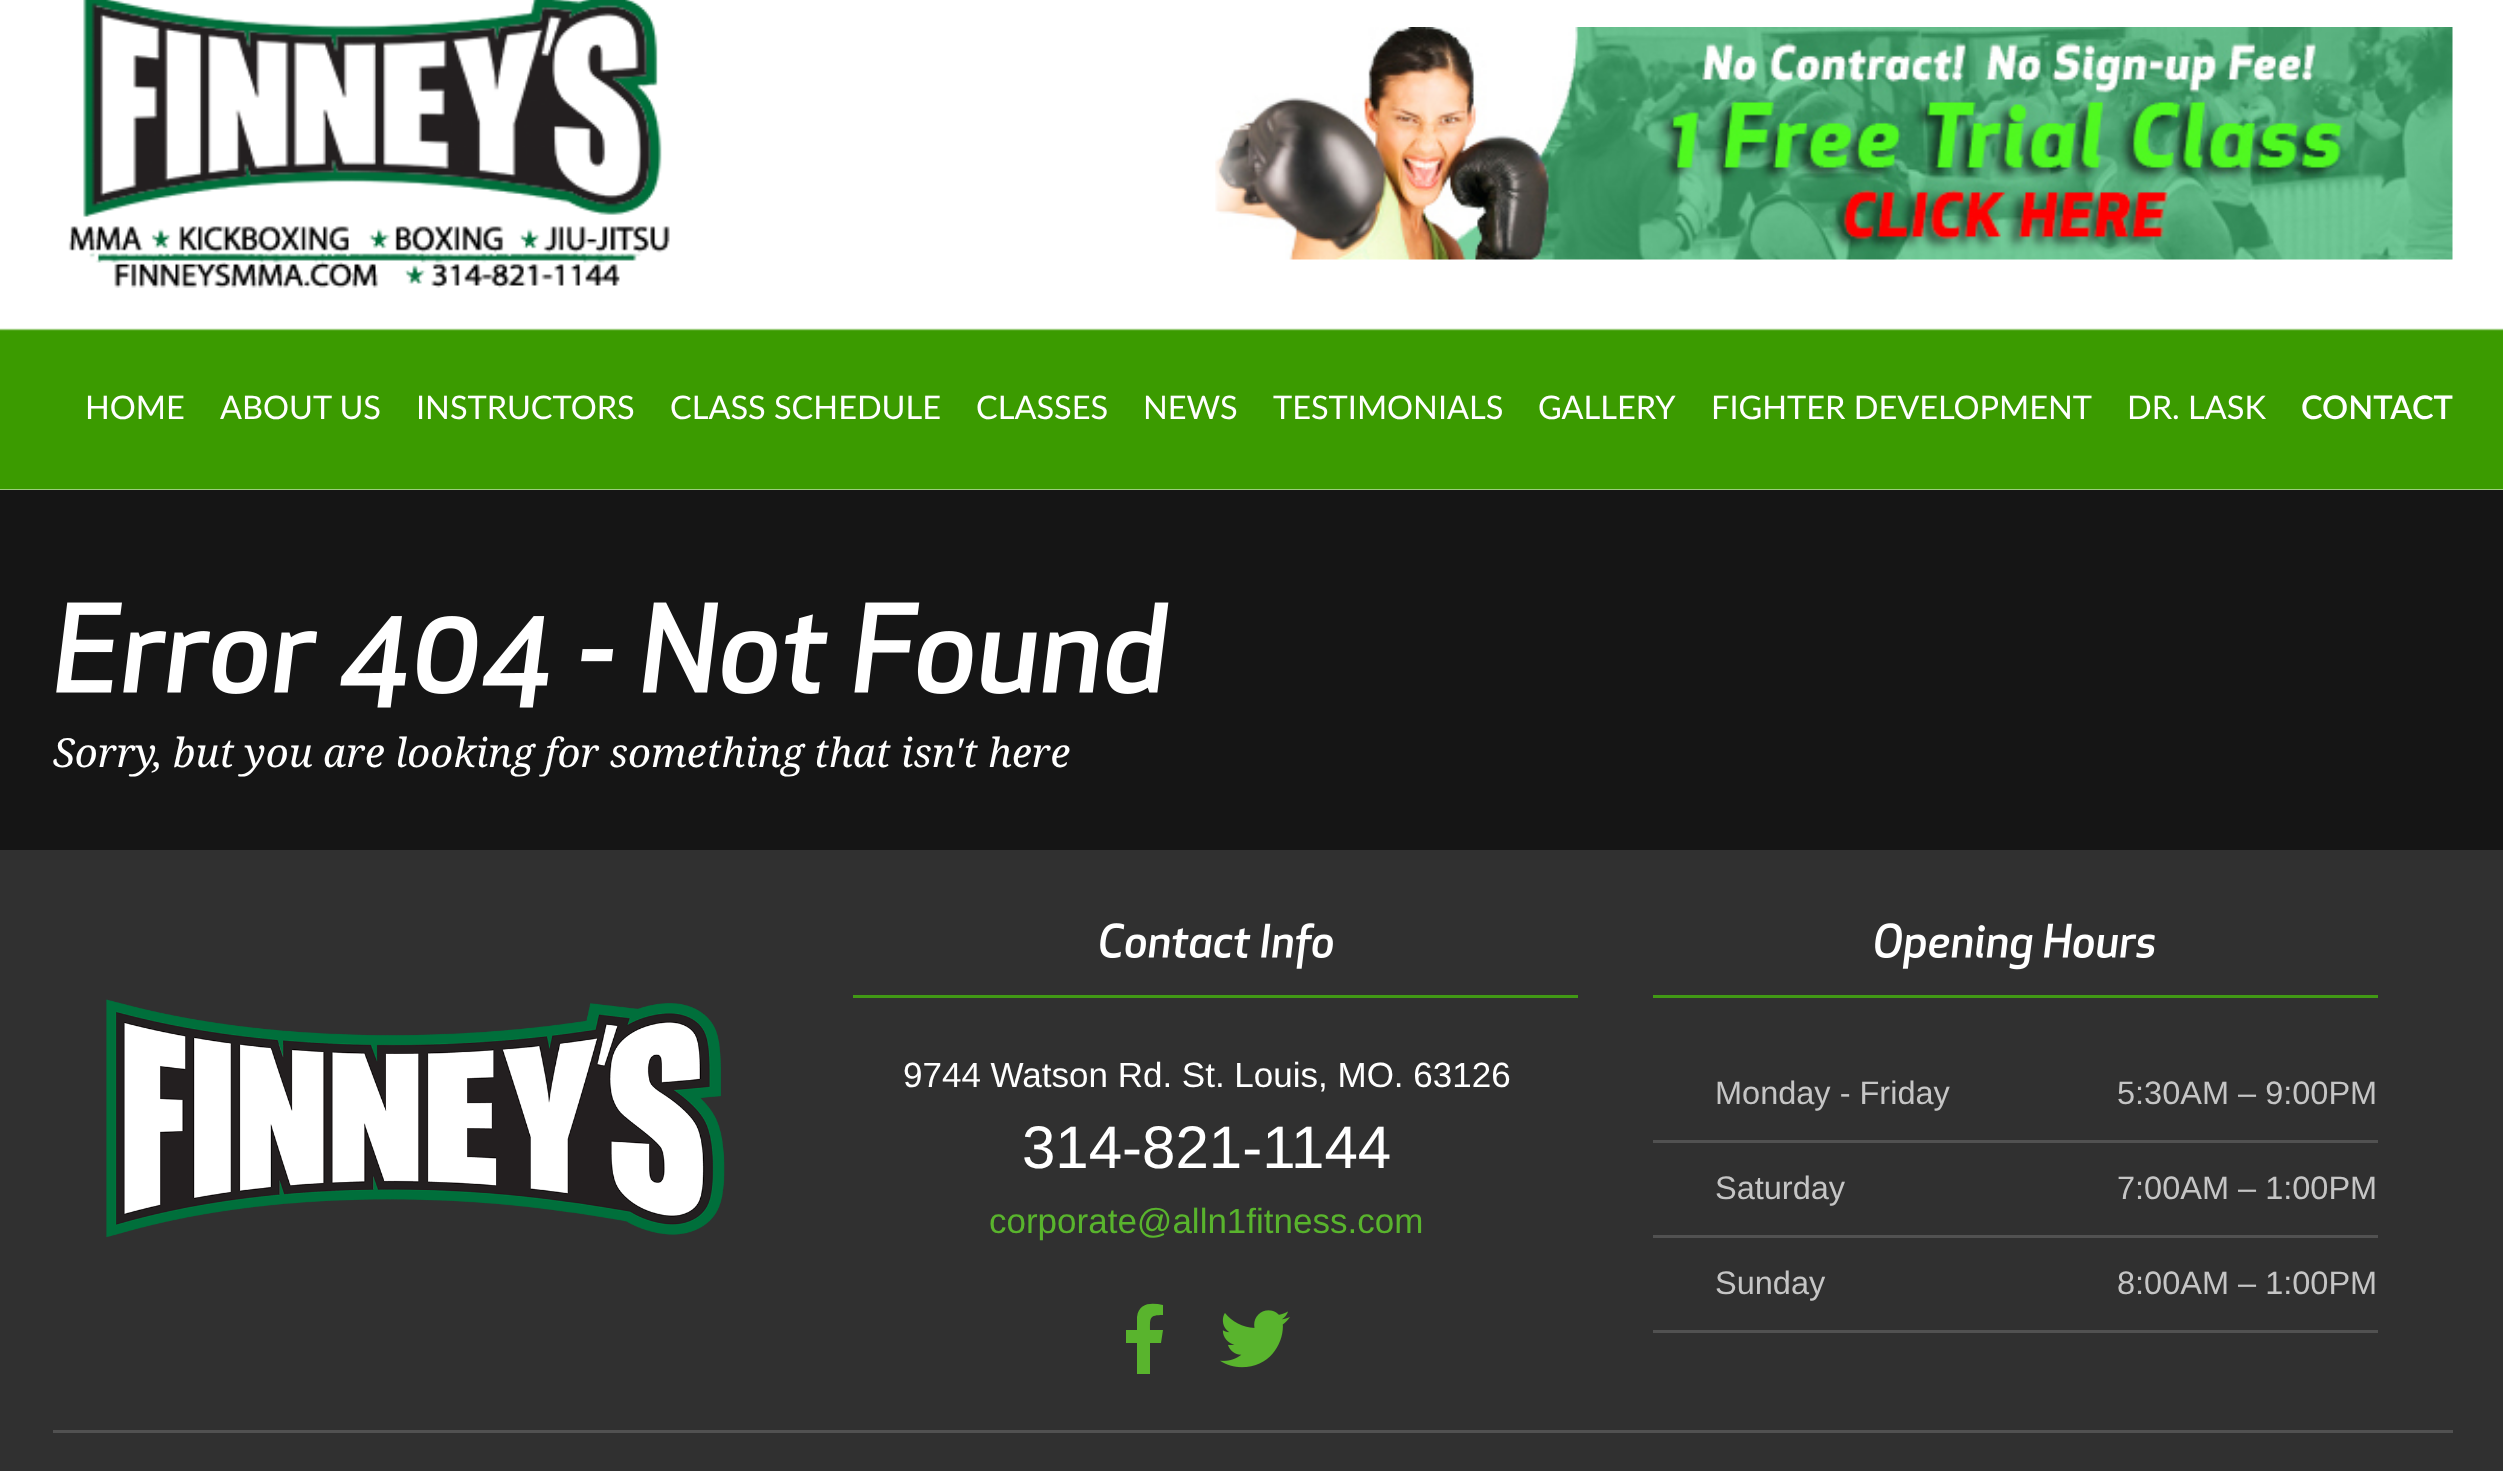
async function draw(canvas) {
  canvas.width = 2503
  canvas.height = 1471
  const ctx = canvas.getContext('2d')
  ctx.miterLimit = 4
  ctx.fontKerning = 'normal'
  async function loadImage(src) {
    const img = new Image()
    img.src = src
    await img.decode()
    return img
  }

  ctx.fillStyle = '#151515'
  ctx.fillRect(0, 0, 2503, 1471)
  ctx.fillStyle = '#fff'
  ctx.fillRect(0, 0, 2503, 490)
  ctx.drawImage(await loadImage('image0.png'), 0, 328, 2503, 162)
  ctx.drawImage(await loadImage('image1.png'), 68, 0, 602, 288)
  ctx.drawImage(await loadImage('image2.png'), 1215, 27, 1238, 233)
  ctx.font = '32.5px Lato'
  ctx.fillText('HOME', 85, 419)
  ctx.fillText('ABOUT US', 220, 419)
  ctx.fillText('INSTRUCTORS', 416, 419)
  ctx.fillText('CLASS SCHEDULE', 670, 419)
  ctx.fillText('CLASSES', 976, 419)
  ctx.fillText('NEWS', 1143, 419)
  ctx.fillText('TESTIMONIALS', 1273, 419)
  ctx.fillText('GALLERY', 1538, 419)
  ctx.fillText('FIGHTER DEVELOPMENT', 1711, 419)
  ctx.fillText('DR. LASK', 2127, 419)
  ctx.font = '600 32.5px Lato'
  ctx.fillText('CONTACT', 2301, 419)
  ctx.drawImage(await loadImage('image3.png'), 56, 602, 1113, 106)
  ctx.font = 'italic 40px Droid Serif'
  ctx.fillText('Sorry, but you are looking for something that isn\'t here', 53, 767)
  ctx.fillStyle = '#303030'
  ctx.fillRect(0, 850, 2503, 621)
  ctx.drawImage(await loadImage('image4.png'), 106, 999, 619, 238)
  ctx.fillStyle = '#419915'
  ctx.fillRect(853, 995, 725, 3)
  ctx.drawImage(await loadImage('image5.png'), 1100, 923, 233, 46)
  ctx.font = '35px Liberation Sans'
  ctx.fillStyle = '#fff'
  ctx.fillText('9744 Watson Rd. St. Louis, MO. 63126', 903, 1087)
  ctx.font = '60px Liberation Sans'
  ctx.fillText('314-821-1144', 1022, 1168)
  ctx.font = '35px Liberation Sans'
  ctx.fillStyle = '#59b42d'
  ctx.fillText('corporate@alln1fitness.com', 989, 1233)
  ctx.beginPath()
  ctx.moveTo(1161, 1343)
  ctx.lineTo(1150, 1343)
  ctx.lineTo(1150, 1374)
  ctx.lineTo(1137, 1374)
  ctx.lineTo(1137, 1343)
  ctx.lineTo(1126, 1343)
  ctx.lineTo(1126, 1330)
  ctx.lineTo(1137, 1330)
  ctx.lineTo(1137, 1317)
  ctx.bezierCurveTo(1139, 1302, 1152, 1303, 1163, 1305)
  ctx.lineTo(1163, 1315)
  ctx.bezierCurveTo(1149, 1315, 1150, 1318, 1150, 1330)
  ctx.lineTo(1163, 1330)
  ctx.closePath()
  ctx.fill()
  ctx.drawImage(await loadImage('image6.png'), 1220, 1310, 70, 58)
  ctx.fillStyle = '#419915'
  ctx.fillRect(1653, 995, 725, 3)
  ctx.drawImage(await loadImage('image7.png'), 1875, 923, 280, 47)
  ctx.fillStyle = '#515151'
  ctx.fillRect(1653, 1140, 725, 3)
  ctx.font = '32.5px Liberation Sans'
  ctx.fillStyle = '#c5c5c5'
  ctx.fillText('Monday - Friday', 1715, 1104)
  ctx.fillText('5:30AM – 9:00PM', 2117, 1104)
  ctx.fillStyle = '#515151'
  ctx.fillRect(1653, 1235, 725, 3)
  ctx.fillStyle = '#c5c5c5'
  ctx.fillText('Saturday', 1715, 1199)
  ctx.fillText('7:00AM – 1:00PM', 2117, 1199)
  ctx.fillStyle = '#515151'
  ctx.fillRect(1653, 1330, 725, 3)
  ctx.fillStyle = '#c5c5c5'
  ctx.fillText('Sunday', 1715, 1294)
  ctx.fillText('8:00AM – 1:00PM', 2117, 1294)
  ctx.fillStyle = '#515151'
  ctx.fillRect(53, 1430, 2400, 3)
}

draw(document.querySelector('canvas'))
